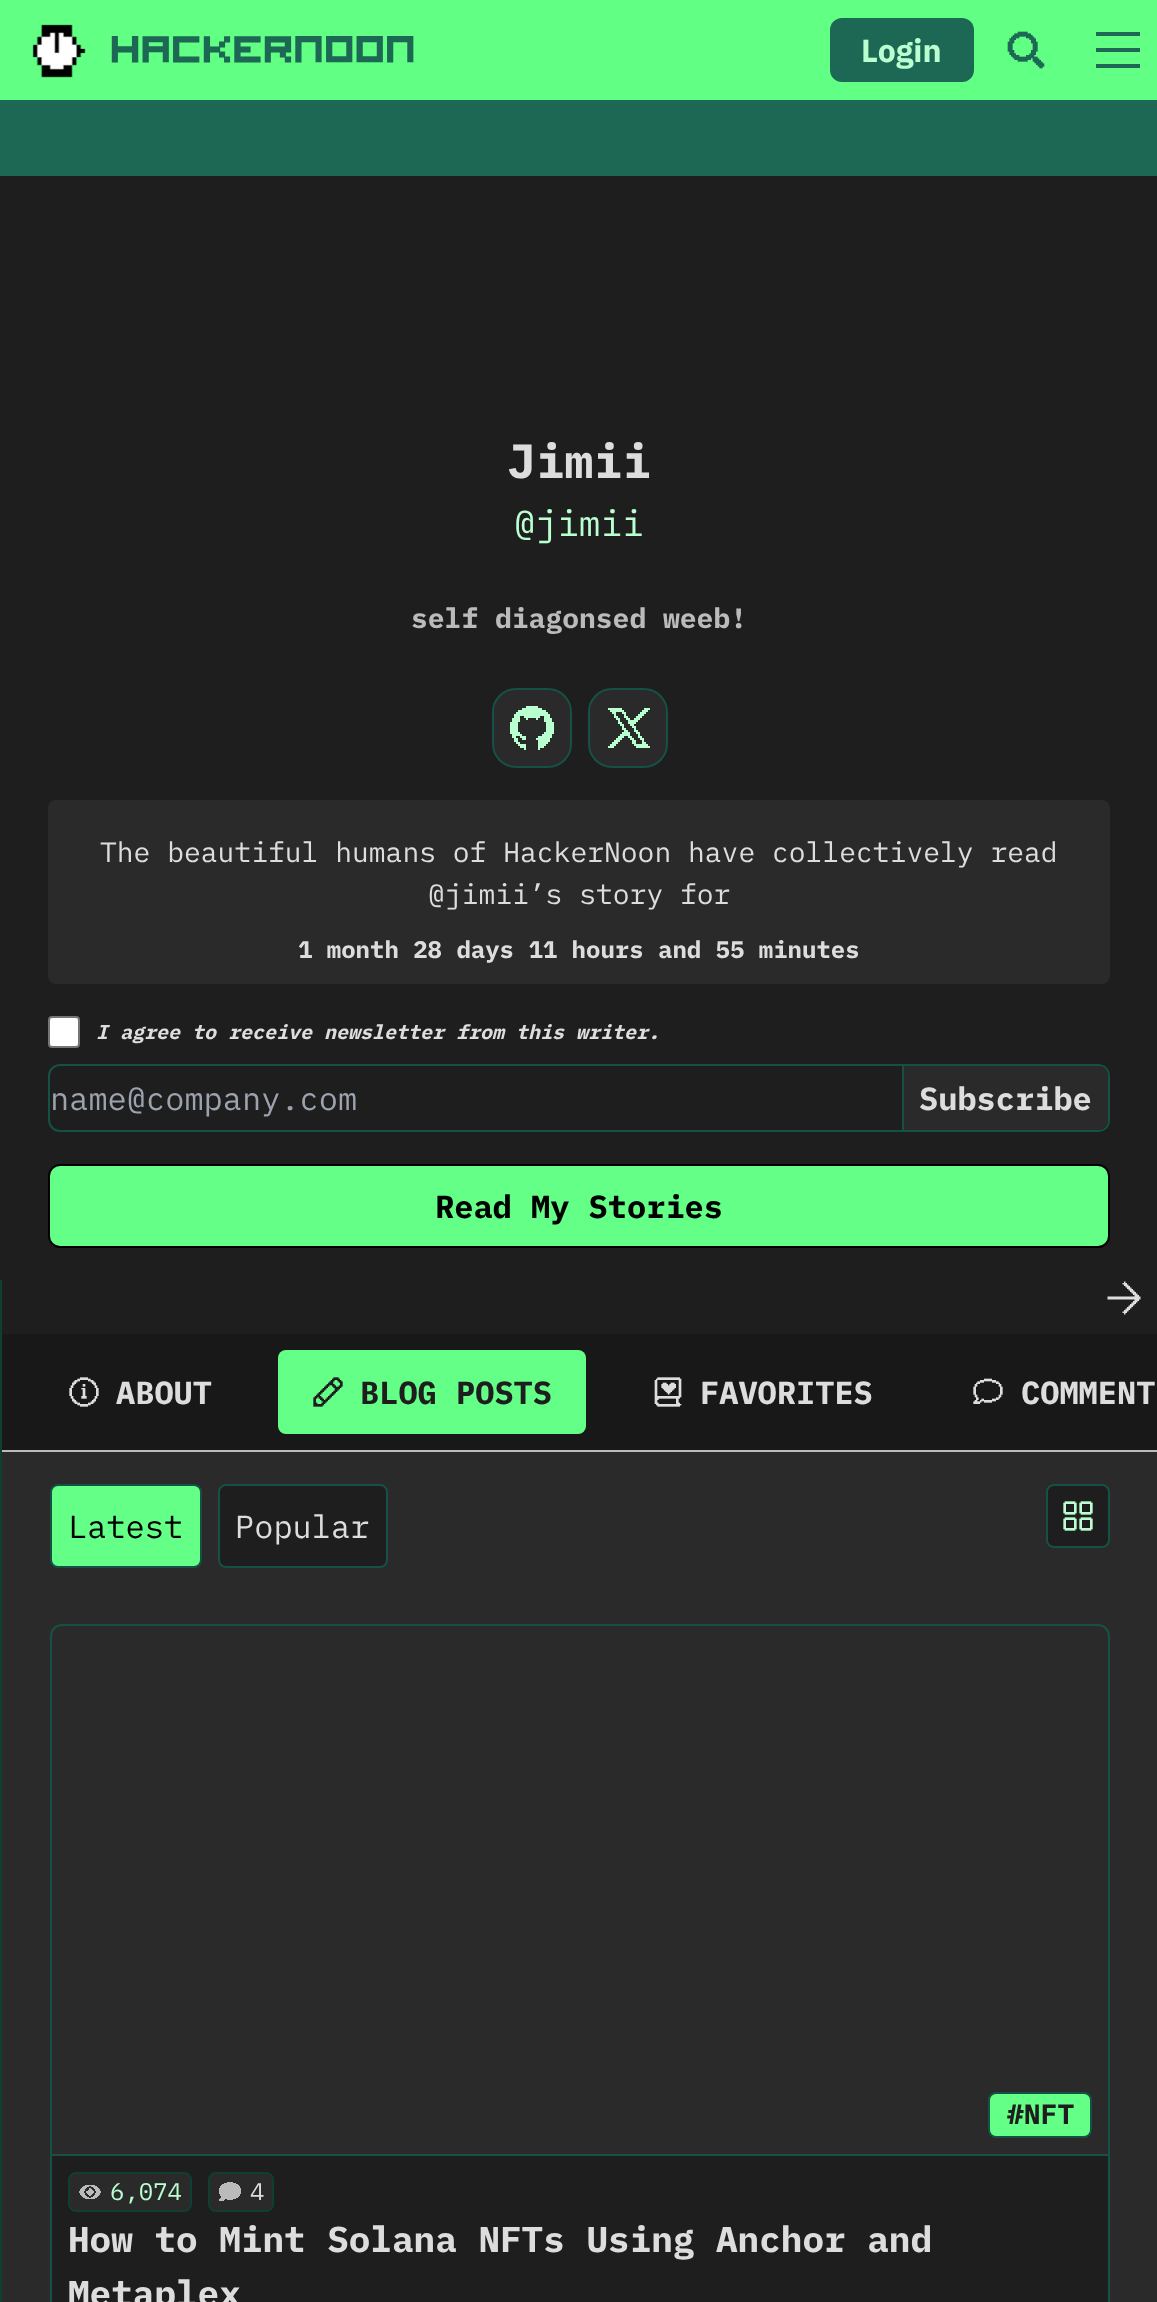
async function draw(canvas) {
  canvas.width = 1157
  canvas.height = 2302
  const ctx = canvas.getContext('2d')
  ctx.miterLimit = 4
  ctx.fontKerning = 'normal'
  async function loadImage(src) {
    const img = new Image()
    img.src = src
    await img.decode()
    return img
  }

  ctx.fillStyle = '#1e1e1e'
  ctx.fillRect(0, 0, 1157, 2302)
  ctx.fillStyle = '#61ff83'
  ctx.fillRect(0, 0, 1157, 100)
  ctx.drawImage(await loadImage('image0.png'), 32, 24, 54, 54)
  ctx.letterSpacing = '1.75px'
  ctx.font = 'bold 36px "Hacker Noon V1"'
  ctx.fillStyle = '#1d6854'
  ctx.fillText('Hackernoon', 110, 59)
  ctx.beginPath()
  ctx.roundRect(830, 18, 144, 64, 12)
  ctx.fill()
  ctx.letterSpacing = '0px'
  ctx.font = 'bold 32px IBM Plex Sans'
  ctx.fillStyle = '#b9ffd0'
  ctx.fillText('Login', 861, 62)
  ctx.drawImage(await loadImage('image1.png'), 1007, 31, 38, 38)
  ctx.fillStyle = '#1d6854'
  ctx.beginPath()
  ctx.moveTo(1096, 48)
  ctx.lineTo(1140, 48)
  ctx.lineTo(1140, 52)
  ctx.lineTo(1096, 52)
  ctx.closePath()
  ctx.moveTo(1096, 64)
  ctx.lineTo(1140, 64)
  ctx.lineTo(1140, 68)
  ctx.lineTo(1096, 68)
  ctx.closePath()
  ctx.moveTo(1096, 32)
  ctx.lineTo(1140, 32)
  ctx.lineTo(1140, 36)
  ctx.lineTo(1096, 36)
  ctx.closePath()
  ctx.fill()
  ctx.fillRect(0, 100, 1157, 76)
  ctx.font = 'bold 48px IBM Plex Mono'
  ctx.fillStyle = '#ddd'
  ctx.fillText('Jimii', 507, 478)
  ctx.font = '36px IBM Plex Mono'
  ctx.fillStyle = '#b9ffd0'
  ctx.fillText('@jimii', 514, 536)
  ctx.font = 'bold 28px IBM Plex Mono'
  ctx.fillStyle = '#bbb'
  ctx.fillText('self diagonsed weeb!', 411, 628)
  ctx.fillStyle = '#2a2a2a'
  ctx.beginPath()
  ctx.roundRect(493, 689, 78, 78, 23)
  ctx.fill()
  ctx.strokeStyle = '#155144'
  ctx.lineWidth = 2
  ctx.stroke()
  ctx.drawImage(await loadImage('image2.png'), 510, 706, 44, 44)
  ctx.beginPath()
  ctx.roundRect(589, 689, 78, 78, 23)
  ctx.fill()
  ctx.stroke()
  ctx.drawImage(await loadImage('image3.png'), 608, 708, 42, 40)
  ctx.beginPath()
  ctx.roundRect(48, 800, 1062, 184, 8)
  ctx.fill()
  ctx.font = '28px IBM Plex Mono'
  ctx.fillStyle = '#ddd'
  ctx.fillText('The beautiful humans of HackerNoon have collectively read', 100, 862)
  ctx.fillText('@jimii’s story for', 428, 904)
  ctx.font = 'bold 24px IBM Plex Mono'
  ctx.fillText('1 month 28 days 11 hours and 55 minutes', 298, 958)
  ctx.fillStyle = '#fff'
  ctx.beginPath()
  ctx.roundRect(49, 1017, 30, 30, 3)
  ctx.fill()
  ctx.strokeStyle = '#767676'
  ctx.stroke()
  ctx.font = 'italic bold 20px IBM Plex Mono'
  ctx.fillStyle = '#ddd'
  ctx.fillText('I agree to receive newsletter from this writer.', 96, 1039)
  ctx.beginPath()
  ctx.roundRect(49, 1065, 854, 66, [11, 0, 0, 11])
  ctx.strokeStyle = '#155144'
  ctx.stroke()
  ctx.font = '32px IBM Plex Mono'
  ctx.fillStyle = '#9ca3af'
  ctx.fillText('name@company.com', 50, 1110)
  ctx.fillStyle = '#2a2a2a'
  ctx.beginPath()
  ctx.roundRect(904, 1066, 204, 64, [0, 10, 10, 0])
  ctx.fill()
  ctx.fillStyle = '#155144'
  ctx.beginPath()
  ctx.moveTo(904, 1064)
  ctx.lineTo(1098, 1064)
  ctx.bezierCurveTo(1105, 1064, 1110, 1069, 1110, 1076)
  ctx.lineTo(1110, 1120)
  ctx.bezierCurveTo(1110, 1127, 1105, 1132, 1098, 1132)
  ctx.lineTo(904, 1132)
  ctx.closePath()
  ctx.moveTo(904, 1066)
  ctx.lineTo(1098, 1066)
  ctx.bezierCurveTo(1104, 1066, 1108, 1070, 1108, 1076)
  ctx.lineTo(1108, 1120)
  ctx.bezierCurveTo(1108, 1126, 1104, 1130, 1098, 1130)
  ctx.lineTo(904, 1130)
  ctx.closePath()
  ctx.fill('evenodd')
  ctx.font = 'bold 32px IBM Plex Mono'
  ctx.fillStyle = '#ddd'
  ctx.fillText('Subscribe', 919, 1110)
  ctx.fillStyle = '#63ff86'
  ctx.beginPath()
  ctx.roundRect(49, 1165, 1060, 82, 11)
  ctx.fill()
  ctx.strokeStyle = '#000'
  ctx.stroke()
  ctx.fillStyle = '#000'
  ctx.fillText('Read My Stories', 435, 1218)
  ctx.fillStyle = '#2a2a2a'
  ctx.fillRect(2, 1452, 1155, 850)
  ctx.fillStyle = '#0e3f32'
  ctx.fillRect(0, 1280, 2, 1022)
  ctx.fillStyle = '#bbb'
  ctx.fillRect(2, 1450, 1155, 2)
  ctx.drawImage(await loadImage('image4.png'), 1107, 1281, 34, 34)
  ctx.fillStyle = '#181818'
  ctx.fillRect(2, 1334, 1155, 116)
  ctx.drawImage(await loadImage('image5.png'), 69, 1377, 30, 30)
  ctx.fillStyle = '#ddd'
  ctx.fillText('ABOUT', 116, 1404)
  ctx.fillStyle = '#63ff86'
  ctx.beginPath()
  ctx.roundRect(278, 1350, 308, 84, 8)
  ctx.fill()
  ctx.drawImage(await loadImage('image6.png'), 313, 1377, 30, 30)
  ctx.fillStyle = '#1e1e1e'
  ctx.fillText('BLOG POSTS', 360, 1404)
  ctx.drawImage(await loadImage('image7.png'), 654, 1377, 28, 30)
  ctx.fillStyle = '#ddd'
  ctx.fillText('FAVORITES', 700, 1404)
  ctx.drawImage(await loadImage('image8.png'), 973, 1378, 30, 26)
  ctx.fillText('COMMENT', 1021, 1404)
  ctx.fillStyle = '#63ff86'
  ctx.beginPath()
  ctx.roundRect(51, 1485, 150, 82, 7)
  ctx.fill()
  ctx.strokeStyle = '#155144'
  ctx.stroke()
  ctx.font = '32px IBM Plex Mono'
  ctx.fillStyle = '#000'
  ctx.fillText('Latest', 68, 1538)
  ctx.fillStyle = '#1e1e1e'
  ctx.beginPath()
  ctx.roundRect(219, 1485, 168, 82, 7)
  ctx.fill()
  ctx.stroke()
  ctx.fillStyle = '#ddd'
  ctx.fillText('Popular', 235, 1538)
  ctx.fillStyle = '#1e1e1e'
  ctx.beginPath()
  ctx.roundRect(1047, 1485, 62, 62, 7)
  ctx.fill()
  ctx.stroke()
  ctx.drawImage(await loadImage('image9.png'), 1063, 1501, 30, 30)
  ctx.beginPath()
  ctx.roundRect(51, 1625, 1058, 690, 11)
  ctx.stroke()
  ctx.fillStyle = '#63ff86'
  ctx.beginPath()
  ctx.roundRect(989, 2093, 102, 44, 7)
  ctx.fill()
  ctx.stroke()
  ctx.font = 'bold 28px IBM Plex Mono'
  ctx.fillStyle = '#1e1e1e'
  ctx.fillText('#NFT', 1007, 2124)
  ctx.fillRect(52, 2156, 1056, 146)
  ctx.fillStyle = '#155144'
  ctx.fillRect(52, 2154, 1056, 2)
  ctx.fillStyle = '#2a2a2a'
  ctx.beginPath()
  ctx.roundRect(69, 2173, 122, 38, 7)
  ctx.fill()
  ctx.strokeStyle = '#0e3f32'
  ctx.stroke()
  ctx.drawImage(await loadImage('image10.png'), 79, 2185, 22, 14)
  ctx.font = '24px IBM Plex Mono'
  ctx.fillStyle = '#b9ffd0'
  ctx.fillText('6,074', 110, 2200)
  ctx.fillStyle = '#2a2a2a'
  ctx.beginPath()
  ctx.roundRect(209, 2173, 64, 38, 7)
  ctx.fill()
  ctx.stroke()
  ctx.drawImage(await loadImage('image11.png'), 219, 2182, 22, 19)
  ctx.fillStyle = '#ddd'
  ctx.fillText('4', 250, 2200)
  ctx.font = 'bold 36px IBM Plex Mono'
  ctx.fillText('How to Mint Solana NFTs Using Anchor and', 68, 2252)
  ctx.fillText('Metaplex', 68, 2306)
}

draw(document.querySelector('canvas'))
